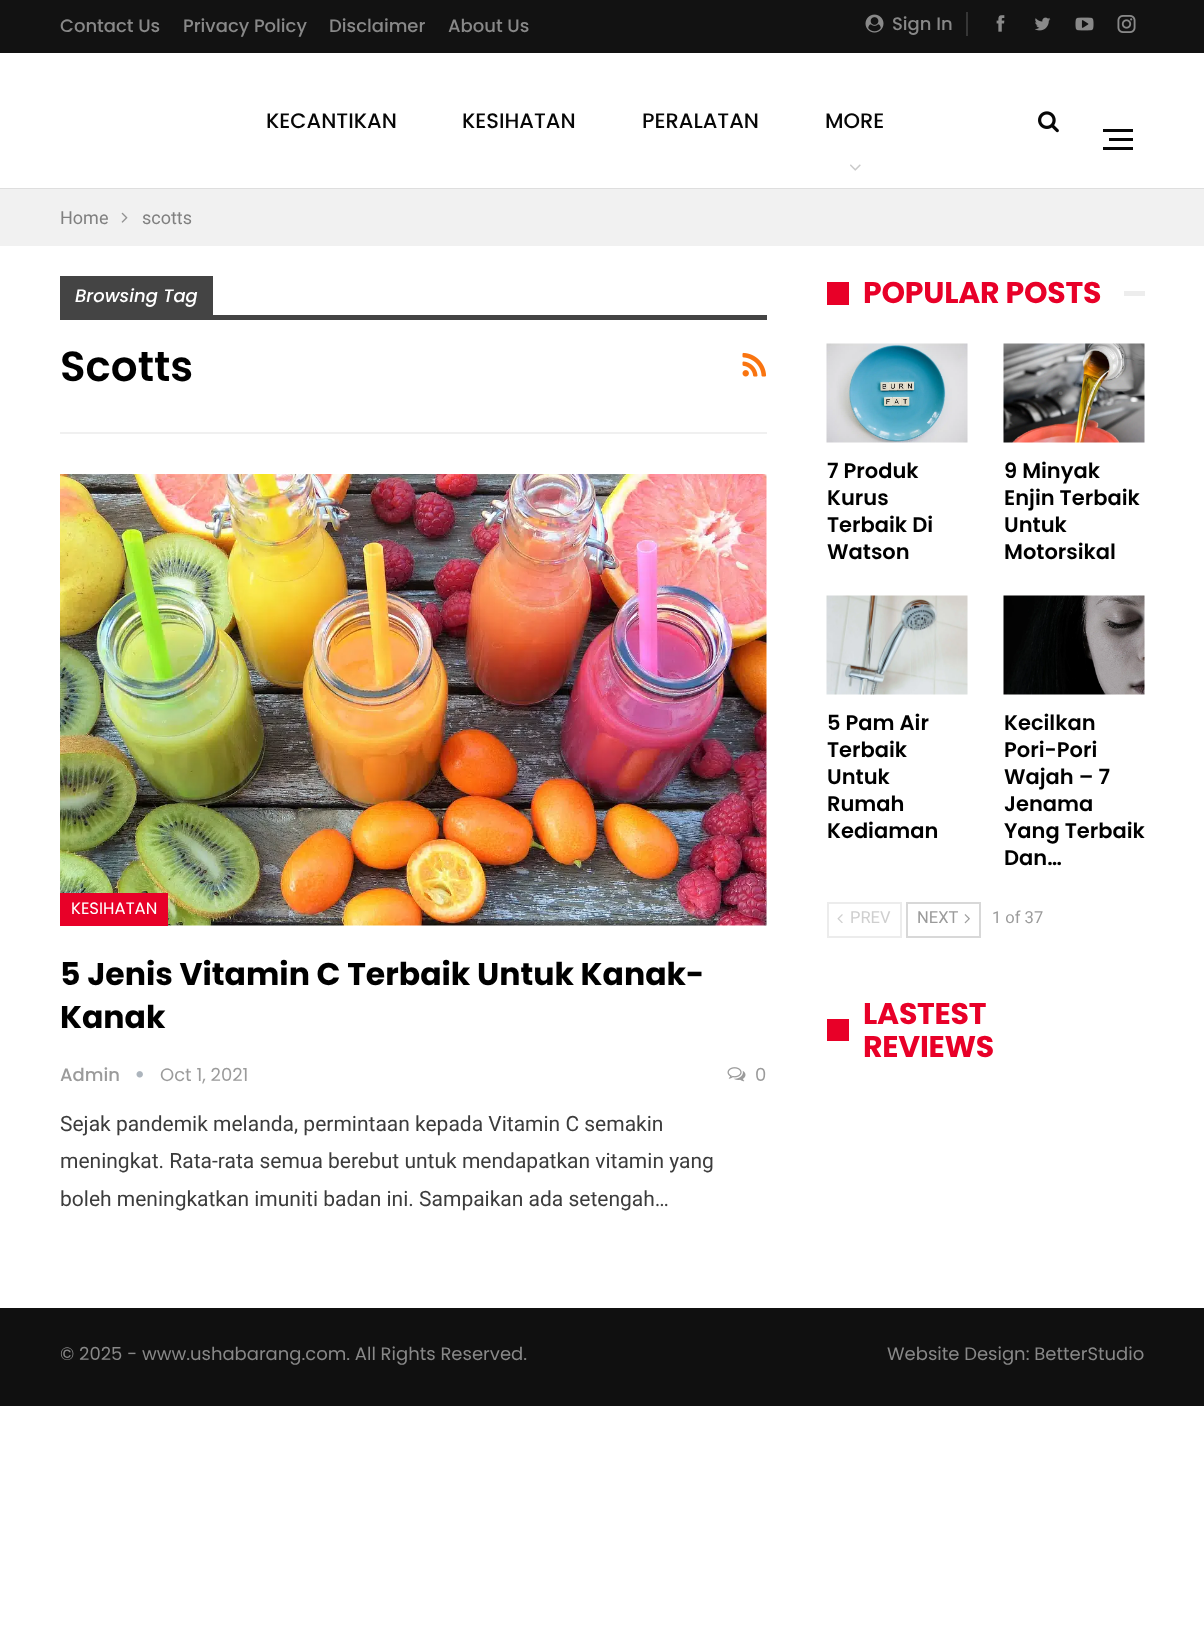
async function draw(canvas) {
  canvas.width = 1204
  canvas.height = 1628
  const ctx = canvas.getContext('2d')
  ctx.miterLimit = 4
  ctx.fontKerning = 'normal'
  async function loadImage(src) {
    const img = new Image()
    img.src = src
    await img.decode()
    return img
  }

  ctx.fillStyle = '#fff'
  ctx.fillRect(0, 0, 1204, 1628)
  ctx.fillStyle = '#dedede'
  ctx.fillRect(0, 188, 1204, 1)
  ctx.fillStyle = '#121212'
  ctx.fillRect(0, 0, 1204, 53)
  ctx.font = '500 18px Poppins'
  ctx.fillStyle = '#888'
  ctx.fillText('Contact Us', 60, 32)
  ctx.fillText('Privacy Policy', 183, 32)
  ctx.fillText('Disclaimer', 329, 32)
  ctx.fillText('About Us', 448, 32)
  ctx.drawImage(await loadImage('image0.png'), 865, 14, 19, 19)
  ctx.fillText('Sign In', 892, 30)
  ctx.fillStyle = '#363636'
  ctx.fillRect(966, 12, 2, 24)
  ctx.drawImage(await loadImage('image1.png'), 996, 15, 9, 17)
  ctx.drawImage(await loadImage('image2.png'), 1035, 17, 16, 14)
  ctx.drawImage(await loadImage('image3.png'), 1075, 17, 19, 14)
  ctx.drawImage(await loadImage('image4.png'), 1117, 15, 19, 18)
  ctx.font = '500 21px Poppins'
  ctx.fillStyle = '#070707'
  ctx.fillText('KECANTIKAN', 266, 128)
  ctx.fillText('KESIHATAN', 462, 128)
  ctx.fillText('PERALATAN', 642, 128)
  ctx.fillText('MORE', 825, 128)
  ctx.drawImage(await loadImage('image5.png'), 850, 164, 11, 7)
  ctx.drawImage(await loadImage('image6.png'), 1038, 111, 21, 22)
  ctx.fillRect(1109, 138, 24, 3)
  ctx.fillRect(1103, 129, 30, 3)
  ctx.fillRect(1103, 147, 30, 3)
  ctx.fillStyle = '#f1f1f1'
  ctx.fillRect(0, 189, 1204, 57)
  ctx.font = '18px Roboto'
  ctx.fillStyle = '#808080'
  ctx.fillText('Home', 60, 224)
  ctx.drawImage(await loadImage('image7.png'), 121, 212, 7, 11)
  ctx.fillText('scotts', 142, 224)
  ctx.fillStyle = '#f0f0f0'
  ctx.fillRect(60, 432, 707, 2)
  ctx.fillStyle = '#444'
  ctx.fillRect(60, 276, 153, 39)
  ctx.font = 'italic 500 18px Poppins'
  ctx.fillStyle = '#fff'
  ctx.fillText('Browsing Tag', 75, 302)
  ctx.fillStyle = '#444'
  ctx.fillRect(60, 315, 707, 5)
  ctx.font = '600 42px Poppins'
  ctx.fillStyle = '#000'
  ctx.fillText('Scotts', 60, 381)
  ctx.drawImage(await loadImage('image8.png'), 742, 352, 25, 25)
  ctx.drawImage(await loadImage('image9.png'), 60, 474, 707, 452)
  ctx.fillStyle = '#e80028'
  ctx.fillRect(60, 893, 108, 33)
  ctx.font = '16.5px Poppins'
  ctx.fillStyle = '#fff'
  ctx.fillText('KESIHATAN', 71, 914)
  ctx.font = 'bold 31.5px Poppins'
  ctx.fillStyle = '#000'
  ctx.fillText('5 Jenis Vitamin C Terbaik Untuk Kanak-', 60, 985)
  ctx.fillText('Kanak', 60, 1028)
  ctx.font = '500 18px Poppins'
  ctx.fillStyle = '#9b9b9b'
  ctx.fillText('Admin', 60, 1081)
  ctx.drawImage(await loadImage('image10.png'), 136, 1071, 7, 7)
  ctx.font = '18px Poppins'
  ctx.fillText('Oct 1, 2021', 160, 1081)
  ctx.drawImage(await loadImage('image11.png'), 727, 1067, 19, 15)
  ctx.fillText('0', 755, 1081)
  ctx.font = '21px Roboto'
  ctx.fillStyle = '#3c3c3c'
  ctx.fillText('Sejak pandemik melanda, permintaan kepada Vitamin C semakin', 60, 1131)
  ctx.fillText('meningkat. Rata-rata semua berebut untuk mendapatkan vitamin yang', 60, 1168)
  ctx.fillText('boleh meningkatkan imuniti badan ini. Sampaikan ada setengah…', 60, 1206)
  ctx.fillStyle = '#e80028'
  ctx.fillRect(827, 282, 22, 23)
  ctx.letterSpacing = '-0.25px'
  ctx.font = 'bold 30px Poppins'
  ctx.fillText('POPULAR POSTS', 863, 303)
  ctx.fillStyle = '#ededed'
  ctx.fillRect(1124, 291, 21, 5)
  ctx.drawImage(await loadImage('image12.png'), 826, 343, 142, 100)
  ctx.letterSpacing = '0px'
  ctx.font = '600 21px Poppins'
  ctx.fillStyle = '#000'
  ctx.fillText('7 Produk', 827, 478)
  ctx.fillText('Kurus', 827, 505)
  ctx.fillText('Terbaik Di', 827, 532)
  ctx.fillText('Watson', 827, 559)
  ctx.drawImage(await loadImage('image13.png'), 1003, 343, 142, 100)
  ctx.fillText('9 Minyak', 1004, 478)
  ctx.fillText('Enjin Terbaik', 1004, 505)
  ctx.fillText('Untuk', 1004, 532)
  ctx.fillText('Motorsikal', 1004, 559)
  ctx.drawImage(await loadImage('image14.png'), 826, 595, 142, 100)
  ctx.fillText('5 Pam Air', 827, 730)
  ctx.fillText('Terbaik', 827, 757)
  ctx.fillText('Untuk', 827, 784)
  ctx.fillText('Rumah', 827, 811)
  ctx.fillText('Kediaman', 827, 838)
  ctx.drawImage(await loadImage('image15.png'), 1003, 595, 142, 100)
  ctx.fillText('Kecilkan', 1004, 730)
  ctx.fillText('Pori-Pori', 1004, 757)
  ctx.fillText('Wajah – 7', 1004, 784)
  ctx.fillText('Jenama', 1004, 811)
  ctx.fillText('Yang Terbaik', 1004, 838)
  ctx.fillText('Dan…', 1004, 865)
  ctx.strokeStyle = '#ececec'
  ctx.lineWidth = 2
  ctx.strokeRect(828, 903, 73, 34)
  ctx.drawImage(await loadImage('image16.png'), 837, 914, 6, 9)
  ctx.font = '16.5px Roboto'
  ctx.fillStyle = '#cfcfcf'
  ctx.fillText('PREV', 850, 923)
  ctx.strokeStyle = '#d8d8d8'
  ctx.strokeRect(907, 903, 73, 34)
  ctx.fillStyle = '#9b9b9b'
  ctx.fillText('NEXT', 917, 923)
  ctx.drawImage(await loadImage('image17.png'), 964, 914, 6, 10)
  ctx.fillText('1 of 37', 992, 923)
  ctx.letterSpacing = '-0.25px'
  ctx.font = 'bold 30px Poppins'
  ctx.fillStyle = '#e80028'
  ctx.fillText('LASTEST', 863, 1024)
  ctx.fillRect(827, 1019, 22, 22)
  ctx.fillText('REVIEWS', 863, 1057)
  ctx.fillStyle = '#101010'
  ctx.fillRect(0, 1308, 1204, 98)
  ctx.letterSpacing = '0px'
  ctx.font = '18px Poppins'
  ctx.fillStyle = '#888'
  ctx.fillText('© 2025 - www.ushabarang.com. All Rights Reserved.', 60, 1360)
  ctx.fillText('Website Design: BetterStudio', 887, 1360)
}

draw(document.querySelector('canvas'))
